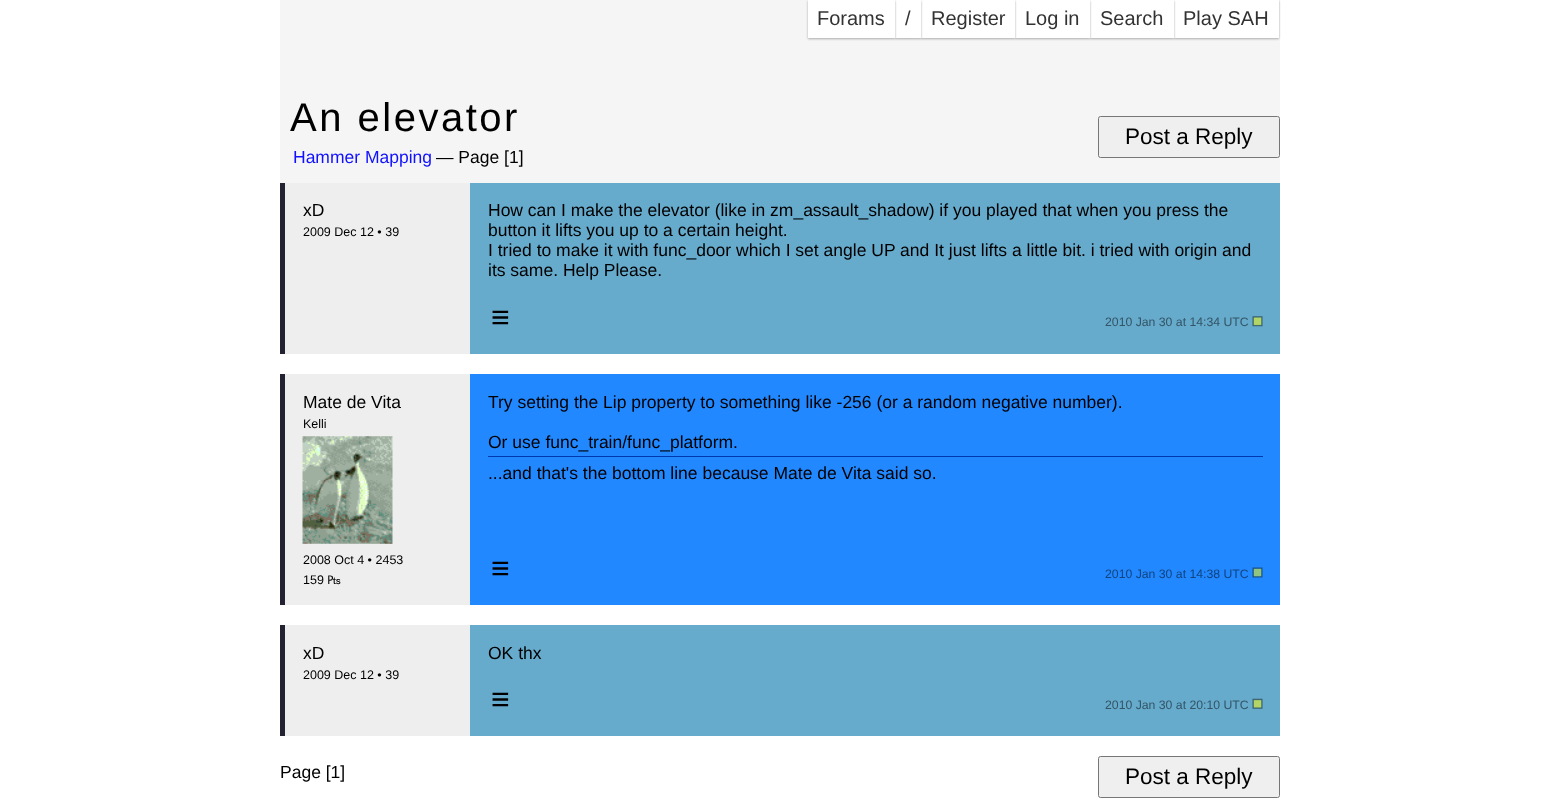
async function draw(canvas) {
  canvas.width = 1560
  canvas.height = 803
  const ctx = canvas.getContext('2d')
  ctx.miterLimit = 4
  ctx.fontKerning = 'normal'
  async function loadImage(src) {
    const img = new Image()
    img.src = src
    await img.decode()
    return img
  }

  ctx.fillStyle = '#fff'
  ctx.fillRect(0, 0, 1560, 803)
  ctx.fillStyle = '#f5f5f5'
  ctx.fillRect(280, 0, 1000, 183)
  ctx.fillStyle = '#aaa'
  ctx.filter = 'blur(1px)'
  ctx.beginPath()
  ctx.rect(1174, 1, 105, 38)
  ctx.fill()
  ctx.filter = 'none'
  ctx.fillStyle = '#fff'
  ctx.fillRect(1174, 0, 105, 38)
  ctx.fillStyle = '#aaa'
  ctx.filter = 'blur(1px)'
  ctx.beginPath()
  ctx.rect(1090, 1, 84, 38)
  ctx.fill()
  ctx.filter = 'none'
  ctx.fillStyle = '#fff'
  ctx.fillRect(1090, 0, 84, 38)
  ctx.fillStyle = '#aaa'
  ctx.filter = 'blur(1px)'
  ctx.beginPath()
  ctx.rect(1015, 1, 75, 38)
  ctx.fill()
  ctx.filter = 'none'
  ctx.fillStyle = '#fff'
  ctx.fillRect(1015, 0, 75, 38)
  ctx.fillStyle = '#aaa'
  ctx.filter = 'blur(1px)'
  ctx.beginPath()
  ctx.rect(921, 1, 94, 38)
  ctx.fill()
  ctx.filter = 'none'
  ctx.fillStyle = '#fff'
  ctx.fillRect(921, 0, 94, 38)
  ctx.fillStyle = '#aaa'
  ctx.filter = 'blur(1px)'
  ctx.beginPath()
  ctx.rect(895, 1, 26, 38)
  ctx.fill()
  ctx.filter = 'none'
  ctx.fillStyle = '#fff'
  ctx.fillRect(895, 0, 26, 38)
  ctx.fillStyle = '#aaa'
  ctx.filter = 'blur(1px)'
  ctx.beginPath()
  ctx.rect(808, 1, 87, 38)
  ctx.fill()
  ctx.filter = 'none'
  ctx.fillStyle = '#fff'
  ctx.fillRect(808, 0, 87, 38)
  ctx.font = '20px Liberation Sans'
  ctx.fillStyle = '#333'
  ctx.fillText('Forams', 817, 25)
  ctx.fillText('/', 905, 25)
  ctx.fillText('Register', 931, 25)
  ctx.fillText('Log in', 1025, 25)
  ctx.fillText('Search', 1100, 25)
  ctx.fillText('Play SAH', 1183, 25)
  ctx.letterSpacing = '2.5px'
  ctx.font = '40px Liberation Sans'
  ctx.fillStyle = '#000'
  ctx.fillText('An elevator', 290, 131)
  ctx.fillStyle = '#efefef'
  ctx.beginPath()
  ctx.roundRect(1098.5, 116.5, 181, 41, 2)
  ctx.fill()
  ctx.strokeStyle = '#767676'
  ctx.stroke()
  ctx.letterSpacing = '0px'
  ctx.font = '22.5px Liberation Sans'
  ctx.fillStyle = '#000'
  ctx.fillText('Post a Reply', 1125, 144)
  ctx.font = '17.5px Liberation Sans'
  ctx.fillStyle = '#11f'
  ctx.fillText('Hammer Mapping', 293, 163)
  ctx.fillStyle = '#000'
  ctx.fillText('— Page [1]', 436, 163)
  ctx.fillStyle = '#6ac'
  ctx.fillRect(470, 183, 810, 171)
  ctx.fillStyle = '#eee'
  ctx.fillRect(285, 183, 185, 171)
  ctx.fillStyle = '#223'
  ctx.fillRect(280, 183, 5, 171)
  ctx.fillStyle = '#000'
  ctx.fillText('xD', 303, 216)
  ctx.font = '12.5px Liberation Sans'
  ctx.fillText('2009 Dec 12 • 39', 303, 236)
  ctx.font = '17.5px Liberation Sans'
  ctx.fillText('How can I make the elevator (like in zm_assault_shadow) if you played that when you press the', 488, 216)
  ctx.fillText('button it lifts you up to a certain height.', 488, 236)
  ctx.fillText('I tried to make it with func_door which I set angle UP and It just lifts a little bit. i tried with origin and', 488, 256)
  ctx.fillText('its same. Help Please.', 488, 276)
  ctx.font = '32px Liberation Sans'
  ctx.fillText('≡', 491, 328)
  ctx.font = '12.25px Liberation Sans'
  ctx.fillStyle = '#356'
  ctx.fillText('2010 Jan 30 at 14:34 UTC', 1105, 326)
  ctx.drawImage(await loadImage('image0.png'), 1252, 316, 11, 11)
  ctx.fillStyle = '#28f'
  ctx.fillRect(470, 374, 810, 231)
  ctx.fillStyle = '#eee'
  ctx.fillRect(285, 374, 185, 231)
  ctx.fillStyle = '#223'
  ctx.fillRect(280, 374, 5, 231)
  ctx.font = '17.5px Liberation Sans'
  ctx.fillStyle = '#000'
  ctx.fillText('Mate de Vita', 303, 408)
  ctx.font = '12.5px Liberation Sans'
  ctx.fillText('Kelli', 303, 428)
  ctx.drawImage(await loadImage('image1.png'), 302, 436, 91, 108)
  ctx.fillText('2008 Oct 4 • 2453', 303, 564)
  ctx.fillText('159 ₧', 303, 584)
  ctx.font = '17.5px Liberation Sans'
  ctx.fillText('Try setting the Lip property to something like -256 (or a random negative number).', 488, 408)
  ctx.fillText('Or use func_train/func_platform.', 488, 448)
  ctx.fillStyle = '#0038af'
  ctx.fillRect(488, 456, 775, 1)
  ctx.fillStyle = '#000'
  ctx.fillText('...and that\'s the bottom line because Mate de Vita said so.', 488, 479)
  ctx.font = '32px Liberation Sans'
  ctx.fillText('≡', 491, 579)
  ctx.font = '12.25px Liberation Sans'
  ctx.fillStyle = '#114480'
  ctx.fillText('2010 Jan 30 at 14:38 UTC', 1105, 578)
  ctx.drawImage(await loadImage('image2.png'), 1252, 567, 11, 11)
  ctx.fillStyle = '#6ac'
  ctx.fillRect(470, 625, 810, 111)
  ctx.fillStyle = '#eee'
  ctx.fillRect(285, 625, 185, 111)
  ctx.fillStyle = '#223'
  ctx.fillRect(280, 625, 5, 111)
  ctx.font = '17.5px Liberation Sans'
  ctx.fillStyle = '#000'
  ctx.fillText('xD', 303, 659)
  ctx.font = '12.5px Liberation Sans'
  ctx.fillText('2009 Dec 12 • 39', 303, 679)
  ctx.font = '17.5px Liberation Sans'
  ctx.fillText('OK thx', 488, 659)
  ctx.font = '32px Liberation Sans'
  ctx.fillText('≡', 491, 710)
  ctx.font = '12.25px Liberation Sans'
  ctx.fillStyle = '#356'
  ctx.fillText('2010 Jan 30 at 20:10 UTC', 1105, 709)
  ctx.drawImage(await loadImage('image3.png'), 1252, 698, 11, 11)
  ctx.font = '17.5px Liberation Sans'
  ctx.fillStyle = '#000'
  ctx.fillText('Page [1]', 280, 778)
  ctx.fillStyle = '#efefef'
  ctx.beginPath()
  ctx.roundRect(1098.5, 756.5, 181, 41, 2)
  ctx.fill()
  ctx.stroke()
  ctx.font = '22.5px Liberation Sans'
  ctx.fillStyle = '#000'
  ctx.fillText('Post a Reply', 1125, 784)
}

draw(document.querySelector('canvas'))
